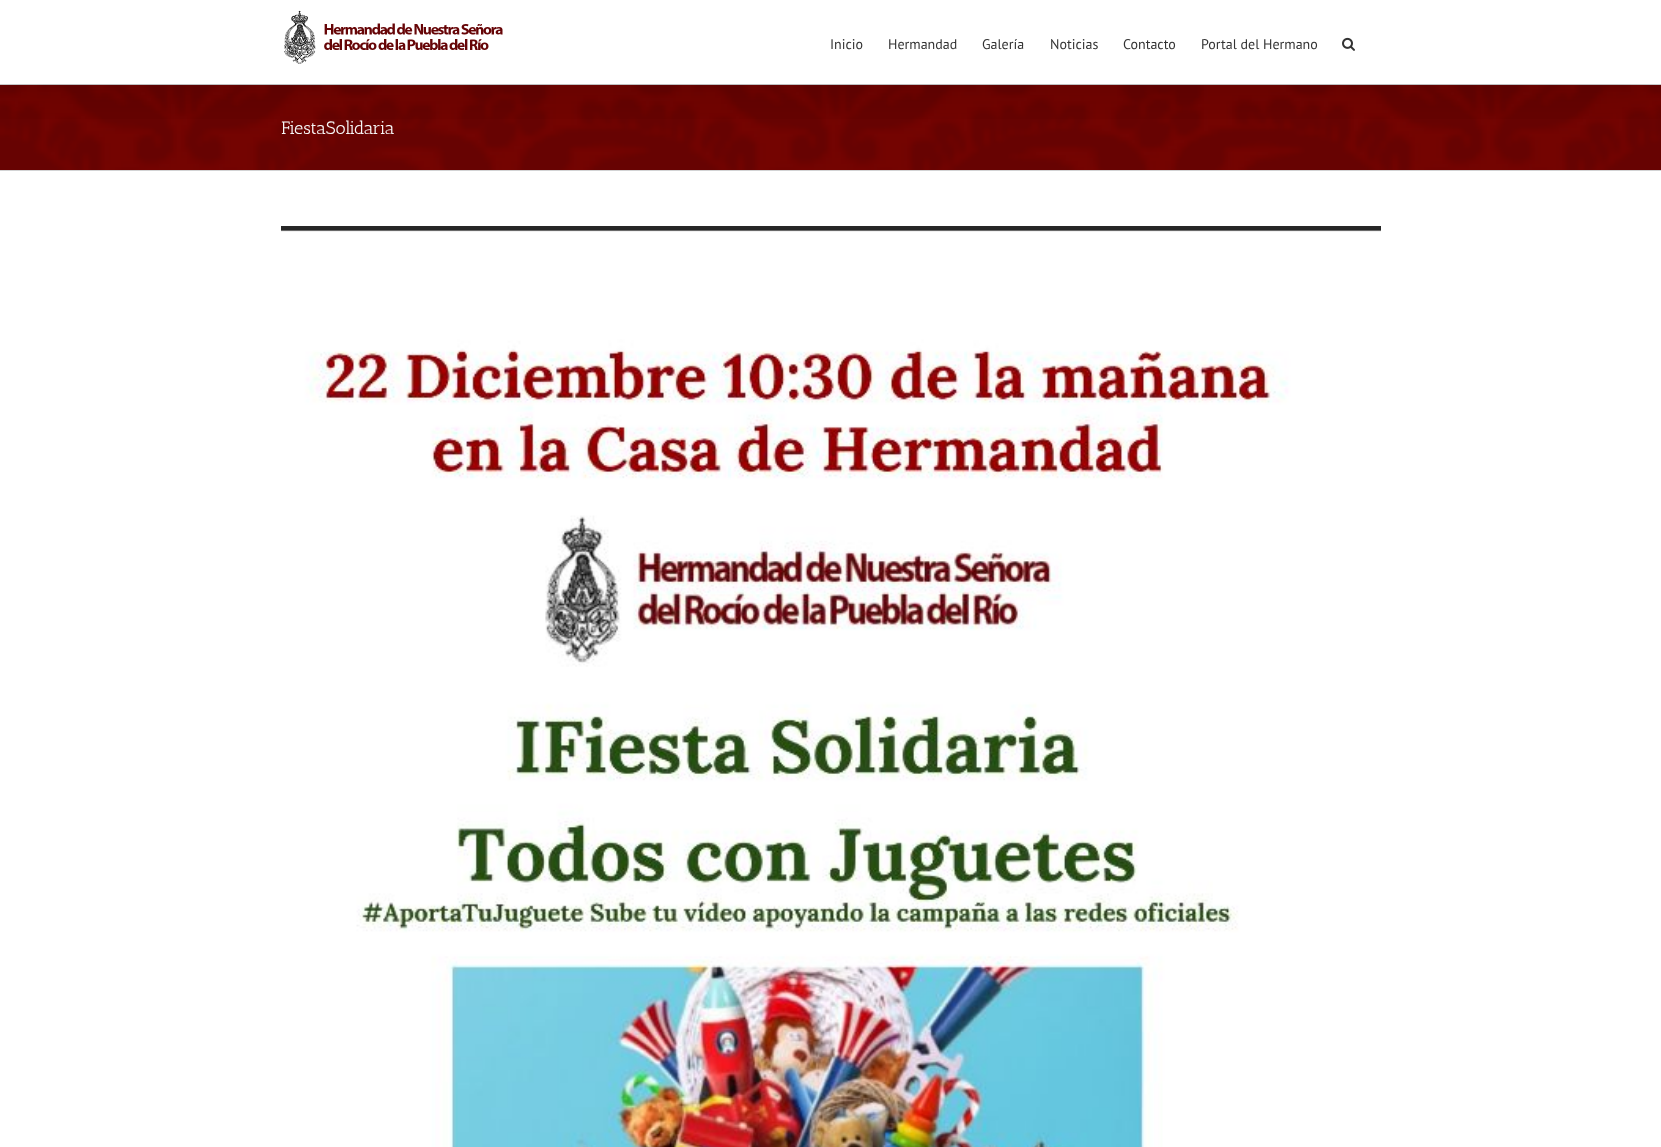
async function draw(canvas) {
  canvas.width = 1661
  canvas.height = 1147
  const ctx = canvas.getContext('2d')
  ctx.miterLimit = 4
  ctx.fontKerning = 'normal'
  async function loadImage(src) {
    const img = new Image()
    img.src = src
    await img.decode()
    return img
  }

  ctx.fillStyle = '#fff'
  ctx.fillRect(0, 0, 1661, 1147)
  ctx.drawImage(await loadImage('image2.png'), 0, 85, 1661, 85)
  ctx.fillStyle = '#d2d3d4'
  ctx.fillRect(0, 84, 1661, 1)
  ctx.save()
  ctx.beginPath()
  ctx.rect(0, 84, 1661, 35)
  ctx.clip()
  ctx.fillStyle = '#00000024'
  ctx.filter = 'blur(25px)'
  ctx.beginPath()
  ctx.rect(2, 12, 1657, 80)
  ctx.fill()
  ctx.filter = 'none'
  ctx.restore()
  ctx.drawImage(await loadImage('image0.png'), 284, 10, 219, 54)
  ctx.font = '14px PT Sans'
  ctx.fillStyle = '#333'
  ctx.fillText('Inicio', 830, 49)
  ctx.fillText('Hermandad', 888, 49)
  ctx.fillText('Galería', 982, 49)
  ctx.fillText('Noticias', 1050, 49)
  ctx.fillText('Contacto', 1123, 49)
  ctx.fillText('Portal del Hermano', 1201, 49)
  ctx.drawImage(await loadImage('image1.png'), 1342, 37, 13, 14)
  ctx.fillStyle = '#d2d3d4'
  ctx.fillRect(0, 170, 1661, 1)
  ctx.font = '18px Antic Slab'
  ctx.fillStyle = '#f7f7f7'
  ctx.fillText('FiestaSolidaria', 281, 134)
  ctx.drawImage(await loadImage('image3.png'), 281, 226, 1100, 921)
}

draw(document.querySelector('canvas'))
